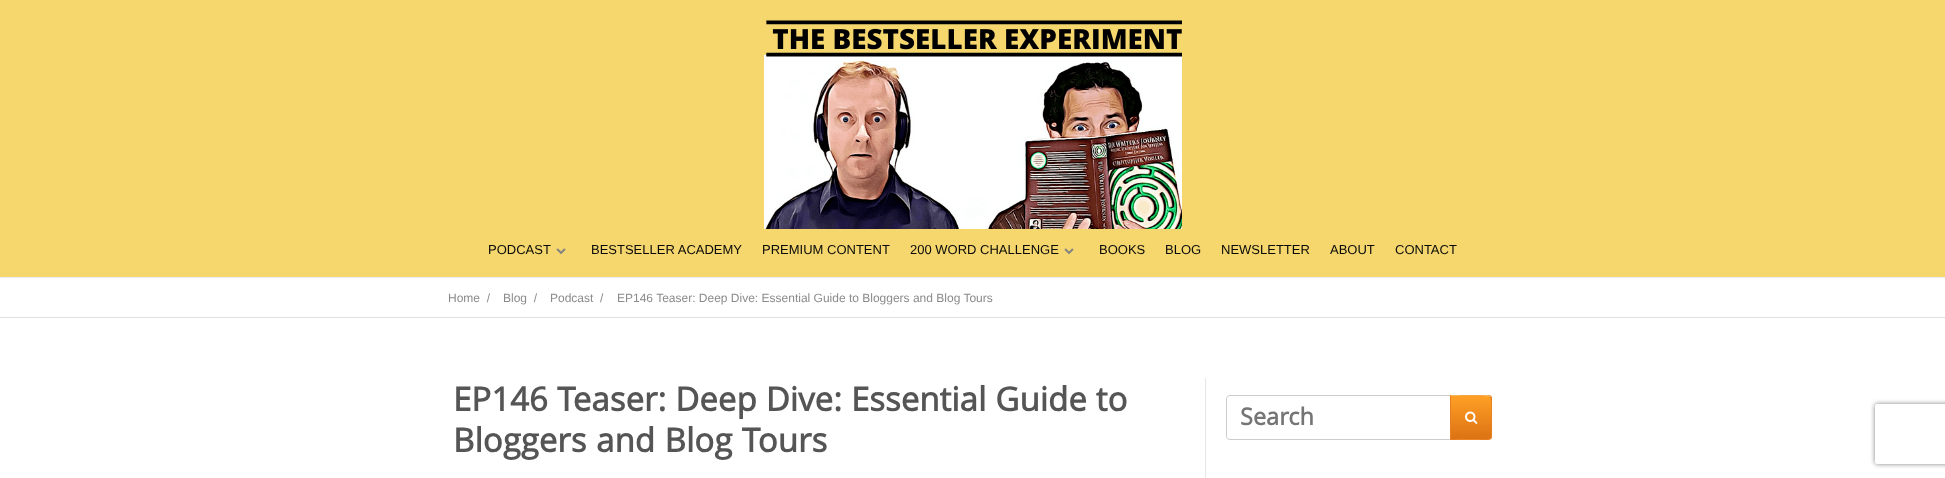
async function draw(canvas) {
  canvas.width = 1945
  canvas.height = 478
  const ctx = canvas.getContext('2d')
  ctx.miterLimit = 4
  ctx.fontKerning = 'normal'
  async function loadImage(src) {
    const img = new Image()
    img.src = src
    await img.decode()
    return img
  }
  let gradient

  ctx.fillStyle = '#fff'
  ctx.fillRect(0, 0, 1945, 478)
  ctx.fillStyle = '#f5d76e'
  ctx.fillRect(0, 0, 1945, 277)
  ctx.fillStyle = '#ebebeb'
  ctx.fillRect(0, 277, 1945, 1)
  ctx.drawImage(await loadImage('image0.png'), 764, 20, 418, 209)
  ctx.font = '13px Liberation Sans'
  ctx.fillStyle = '#0a0a0a'
  ctx.fillText('PODCAST', 488, 254)
  ctx.drawImage(await loadImage('image1.png'), 556, 248, 10, 7)
  ctx.fillText('BESTSELLER ACADEMY', 591, 254)
  ctx.fillText('PREMIUM CONTENT', 762, 254)
  ctx.fillText('200 WORD CHALLENGE', 910, 254)
  ctx.drawImage(await loadImage('image1.png'), 1064, 248, 10, 7)
  ctx.fillText('BOOKS', 1099, 254)
  ctx.fillText('BLOG', 1165, 254)
  ctx.fillText('NEWSLETTER', 1221, 254)
  ctx.fillText('ABOUT', 1330, 254)
  ctx.fillText('CONTACT', 1395, 254)
  ctx.fillStyle = '#e0e0e0'
  ctx.fillRect(0, 317, 1945, 1)
  ctx.font = '12px Liberation Sans'
  ctx.fillStyle = '#8b8b8b'
  ctx.fillText('Home  /', 448, 302)
  ctx.fillText('Blog  /', 503, 302)
  ctx.fillText('Podcast  /', 550, 302)
  ctx.fillText('EP146 Teaser: Deep Dive: Essential Guide to Bloggers and Blog Tours', 617, 302)
  ctx.wordSpacing = '0.5px'
  ctx.font = 'bold 33px Open Sans'
  ctx.fillStyle = '#555'
  ctx.fillText('EP146 Teaser: Deep Dive: Essential Guide to', 453, 411)
  ctx.wordSpacing = '1px'
  ctx.fillText('Bloggers and Blog Tours', 453, 452)
  ctx.fillStyle = '#e7e7e7'
  ctx.fillRect(1205, 378, 1, 100)
  ctx.fillStyle = '#cdcdcd'
  ctx.beginPath()
  ctx.moveTo(1230, 395)
  ctx.lineTo(1450, 395)
  ctx.lineTo(1450, 440)
  ctx.lineTo(1230, 440)
  ctx.bezierCurveTo(1228, 440, 1226, 438, 1226, 436)
  ctx.lineTo(1226, 399)
  ctx.bezierCurveTo(1226, 397, 1228, 395, 1230, 395)
  ctx.closePath()
  ctx.moveTo(1230, 396)
  ctx.lineTo(1450, 396)
  ctx.lineTo(1450, 439)
  ctx.lineTo(1230, 439)
  ctx.bezierCurveTo(1228, 439, 1227, 438, 1227, 436)
  ctx.lineTo(1227, 399)
  ctx.bezierCurveTo(1227, 397, 1228, 396, 1230, 396)
  ctx.closePath()
  ctx.fill('evenodd')
  ctx.wordSpacing = '0px'
  ctx.font = 'bold 23.5px Open Sans'
  ctx.fillStyle = '#757575'
  ctx.fillText('Search', 1240, 425)
  ctx.save()
  ctx.beginPath()
  ctx.roundRect(1450, 395, 42, 45, [0, 4, 4, 0])
  ctx.clip()
  gradient = ctx.createLinearGradient(1471, 353, 1471, 396)
  gradient.addColorStop(0, '#ffa025')
  gradient.addColorStop(1, '#dc7214')
  ctx.fillStyle = gradient
  ctx.fillRect(1450, 395, 42, 1)
  gradient = ctx.createLinearGradient(1471, 396, 1471, 439)
  gradient.addColorStop(0, '#ffa025')
  gradient.addColorStop(1, '#dc7214')
  ctx.fillStyle = gradient
  ctx.fillRect(1451, 396, 41, 43)
  gradient = ctx.createLinearGradient(1471, 439, 1471, 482)
  gradient.addColorStop(0, '#ffa025')
  gradient.addColorStop(1, '#dc7214')
  ctx.fillStyle = gradient
  ctx.fillRect(1450, 439, 42, 1)
  ctx.restore()
  ctx.fillStyle = '#f7b559'
  ctx.beginPath()
  ctx.moveTo(1450, 395)
  ctx.lineTo(1451, 396)
  ctx.bezierCurveTo(1456, 396, 1488, 395, 1490, 397)
  ctx.lineTo(1491, 396)
  ctx.lineTo(1488, 395)
  ctx.closePath()
  ctx.fill()
  ctx.fillStyle = '#e67e22'
  ctx.beginPath()
  ctx.moveTo(1492, 436)
  ctx.lineTo(1492, 399)
  ctx.bezierCurveTo(1492, 398, 1492, 397, 1491, 396)
  ctx.lineTo(1490, 397)
  ctx.bezierCurveTo(1492, 398, 1492, 437, 1490, 438)
  ctx.lineTo(1491, 439)
  ctx.closePath()
  ctx.fill()
  ctx.beginPath()
  ctx.moveTo(1488, 440)
  ctx.lineTo(1491, 439)
  ctx.lineTo(1490, 438)
  ctx.bezierCurveTo(1488, 440, 1456, 439, 1451, 439)
  ctx.lineTo(1450, 440)
  ctx.closePath()
  ctx.fill()
  ctx.beginPath()
  ctx.moveTo(1451, 396)
  ctx.lineTo(1450, 395)
  ctx.lineTo(1450, 440)
  ctx.lineTo(1451, 439)
  ctx.closePath()
  ctx.fill()
  ctx.drawImage(await loadImage('image2.png'), 1465, 411, 13, 13)
  ctx.save()
  ctx.beginPath()
  ctx.moveTo(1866, 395)
  ctx.lineTo(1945, 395)
  ctx.lineTo(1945, 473)
  ctx.lineTo(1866, 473)
  ctx.closePath()
  ctx.moveTo(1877, 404)
  ctx.lineTo(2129, 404)
  ctx.bezierCurveTo(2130, 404, 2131, 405, 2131, 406)
  ctx.lineTo(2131, 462)
  ctx.bezierCurveTo(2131, 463, 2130, 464, 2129, 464)
  ctx.lineTo(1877, 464)
  ctx.bezierCurveTo(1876, 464, 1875, 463, 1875, 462)
  ctx.lineTo(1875, 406)
  ctx.bezierCurveTo(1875, 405, 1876, 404, 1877, 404)
  ctx.closePath()
  ctx.clip('evenodd')
  ctx.fillStyle = '#808080'
  ctx.filter = 'blur(2.5px)'
  ctx.beginPath()
  ctx.roundRect(1875, 404, 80, 60, 2)
  ctx.fill()
  ctx.filter = 'none'
  ctx.restore()
}

draw(document.querySelector('canvas'))
